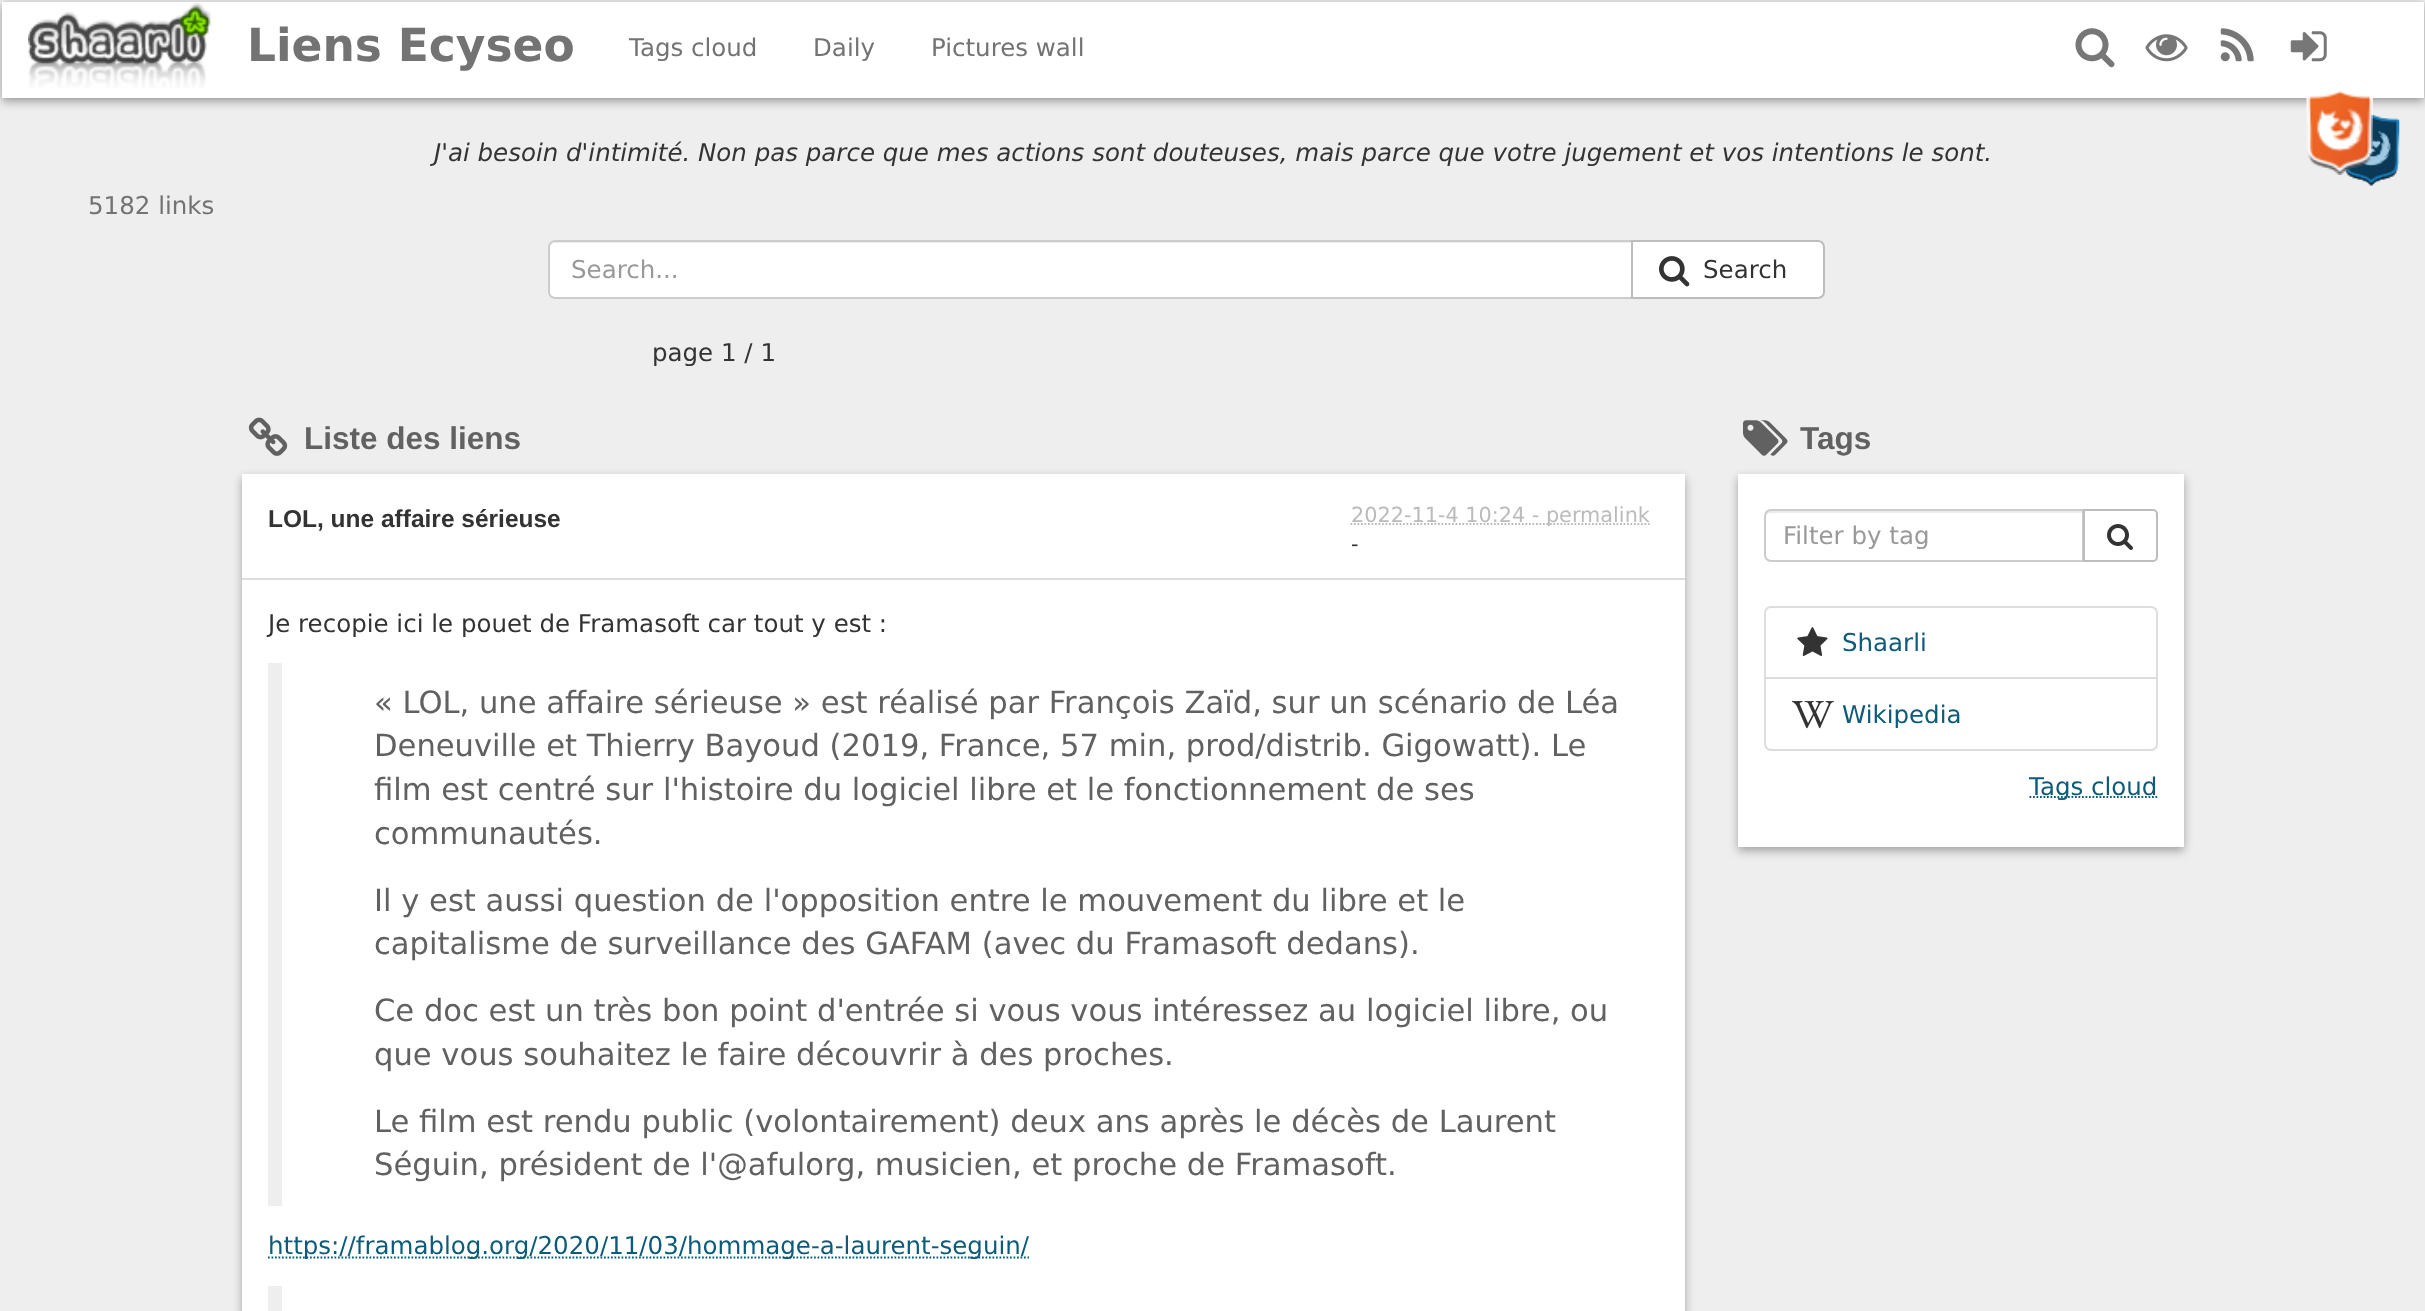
async function draw(canvas) {
  canvas.width = 2425
  canvas.height = 1311
  const ctx = canvas.getContext('2d')
  ctx.miterLimit = 4
  ctx.fontKerning = 'normal'
  async function loadImage(src) {
    const img = new Image()
    img.src = src
    await img.decode()
    return img
  }

  ctx.fillStyle = '#eee'
  ctx.fillRect(0, 0, 2425, 1311)
  ctx.beginPath()
  ctx.roundRect(1, 1, 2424, 98, 6)
  ctx.strokeStyle = '#e7e7e7'
  ctx.lineWidth = 2
  ctx.stroke()
  ctx.fillStyle = '#32323266'
  ctx.filter = 'blur(5px)'
  ctx.beginPath()
  ctx.rect(2, 5, 2422, 97)
  ctx.fill()
  ctx.filter = 'none'
  ctx.fillStyle = '#fff'
  ctx.fillRect(2, 2, 2422, 96)
  ctx.drawImage(await loadImage('image0.png'), 28, 2, 183, 86)
  ctx.font = 'bold 45.5px DejaVu Sans'
  ctx.fillStyle = '#737373'
  ctx.fillText('Liens Ecyseo', 247, 61)
  ctx.font = '24.5px DejaVu Sans'
  ctx.fillText('Tags cloud', 629, 56)
  ctx.fillText('Daily', 813, 56)
  ctx.fillText('Pictures wall', 931, 56)
  ctx.drawImage(await loadImage('image1.png'), 2075, 28, 40, 40)
  ctx.drawImage(await loadImage('image2.png'), 2145, 34, 43, 28)
  ctx.drawImage(await loadImage('image3.png'), 2220, 28, 34, 34)
  ctx.drawImage(await loadImage('image4.png'), 2290, 31, 37, 31)
  ctx.drawImage(await loadImage('image6.png'), 2344, 113, 56, 73)
  ctx.drawImage(await loadImage('image5.png'), 2306, 90, 67, 85)
  ctx.font = 'italic 24.5px DejaVu Sans'
  ctx.fillStyle = '#333'
  ctx.fillText('J\'ai besoin d\'intimité. Non pas parce que mes actions sont douteuses, mais parce que votre jugement et vos intentions le sont.', 434, 161)
  ctx.font = '24.5px DejaVu Sans'
  ctx.fillStyle = '#737373'
  ctx.fillText('5182 links', 88, 214)
  ctx.fillStyle = '#fff'
  ctx.beginPath()
  ctx.roundRect(548, 240, 1085, 59, [7, 0, 0, 7])
  ctx.fill()
  ctx.fillStyle = '#ececec'
  ctx.beginPath()
  ctx.moveTo(555, 243)
  ctx.lineTo(1631, 243)
  ctx.lineTo(1631, 242)
  ctx.lineTo(555, 242)
  ctx.bezierCurveTo(552, 242, 550, 245, 550, 248)
  ctx.bezierCurveTo(550, 246, 552, 243, 555, 243)
  ctx.closePath()
  ctx.fill()
  ctx.beginPath()
  ctx.roundRect(549, 241, 1083, 57, [6, 0, 0, 6])
  ctx.strokeStyle = '#ccc'
  ctx.stroke()
  ctx.fillStyle = '#999'
  ctx.fillText('Search...', 571, 278)
  ctx.fillStyle = '#fff'
  ctx.beginPath()
  ctx.roundRect(1632, 241, 192, 57, [0, 6, 6, 0])
  ctx.fill()
  ctx.strokeStyle = '#bdbdbd'
  ctx.stroke()
  ctx.drawImage(await loadImage('image7.png'), 1659, 256, 31, 31)
  ctx.fillStyle = '#333'
  ctx.fillText('Search', 1703, 278)
  ctx.fillText('page 1 / 1', 652, 361)
  ctx.drawImage(await loadImage('image8.png'), 248, 417, 40, 39)
  ctx.font = 'bold 31.5px Liberation Sans'
  ctx.fillStyle = '#616161'
  ctx.fillText('Liste des liens', 304, 449)
  ctx.fillStyle = '#32323266'
  ctx.filter = 'blur(5px)'
  ctx.beginPath()
  ctx.rect(242, 478, 1443, 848)
  ctx.fill()
  ctx.filter = 'none'
  ctx.fillStyle = '#fff'
  ctx.fillRect(242, 474, 1443, 837)
  ctx.fillStyle = '#ddd'
  ctx.fillRect(242, 578, 1443, 2)
  ctx.font = 'bold 24.5px Liberation Sans'
  ctx.fillStyle = '#333'
  ctx.fillText('LOL, une affaire sérieuse', 268, 527)
  ctx.beginPath()
  ctx.moveTo(1350.5, 524)
  ctx.lineTo(1649.5, 524)
  ctx.strokeStyle = '#bbb'
  ctx.lineWidth = 1.8
  ctx.setLineDash([1.75, 1.75])
  ctx.stroke()
  ctx.font = '20.8px DejaVu Sans'
  ctx.fillStyle = '#bbb'
  ctx.fillText('2022-11-4 10:24 - permalink', 1351, 522)
  ctx.fillStyle = '#333'
  ctx.fillText('-', 1351, 551)
  ctx.font = '24.5px DejaVu Sans'
  ctx.fillText('Je recopie ici le pouet de Framasoft car tout y est :', 268, 632)
  ctx.fillStyle = '#eee'
  ctx.fillRect(268, 663, 14, 543)
  ctx.font = '30.6px DejaVu Sans'
  ctx.fillStyle = '#616161'
  ctx.fillText('« LOL, une affaire sérieuse » est réalisé par François Zaïd, sur un scénario de Léa', 374, 713)
  ctx.fillText('Deneuville et Thierry Bayoud (2019, France, 57 min, prod/distrib. Gigowatt). Le', 374, 756)
  ctx.fillText('film est centré sur l\'histoire du logiciel libre et le fonctionnement de ses', 374, 800)
  ctx.fillText('communautés.', 374, 844)
  ctx.fillText('Il y est aussi question de l\'opposition entre le mouvement du libre et le', 374, 911)
  ctx.fillText('capitalisme de surveillance des GAFAM (avec du Framasoft dedans).', 374, 954)
  ctx.fillText('Ce doc est un très bon point d\'entrée si vous vous intéressez au logiciel libre, ou', 374, 1021)
  ctx.fillText('que vous souhaitez le faire découvrir à des proches.', 374, 1065)
  ctx.fillText('Le film est rendu public (volontairement) deux ans après le décès de Laurent', 374, 1132)
  ctx.fillText('Séguin, président de l\'@afulorg, musicien, et proche de Framasoft.', 374, 1175)
  ctx.beginPath()
  ctx.moveTo(268, 1257.5)
  ctx.lineTo(1029, 1257.5)
  ctx.strokeStyle = '#0c5b7a'
  ctx.stroke()
  ctx.font = '24.5px DejaVu Sans'
  ctx.fillStyle = '#0c5b7a'
  ctx.fillText('https://framablog.org/2020/11/03/hommage-a-laurent-seguin/', 268, 1254)
  ctx.fillStyle = '#eee'
  ctx.fillRect(268, 1286, 14, 25)
  ctx.drawImage(await loadImage('image9.png'), 1743, 420, 45, 36)
  ctx.font = 'bold 31.5px Liberation Sans'
  ctx.fillStyle = '#616161'
  ctx.fillText('Tags', 1800, 449)
  ctx.fillStyle = '#32323266'
  ctx.filter = 'blur(5px)'
  ctx.beginPath()
  ctx.rect(1738, 478, 446, 373)
  ctx.fill()
  ctx.filter = 'none'
  ctx.fillStyle = '#fff'
  ctx.fillRect(1738, 474, 446, 373)
  ctx.fillStyle = '#ececec'
  ctx.beginPath()
  ctx.moveTo(1771, 513)
  ctx.lineTo(2082, 513)
  ctx.lineTo(2082, 560)
  ctx.lineTo(2083, 560)
  ctx.lineTo(2083, 511)
  ctx.lineTo(1771, 511)
  ctx.bezierCurveTo(1768, 511, 1766, 513, 1766, 516)
  ctx.lineTo(1766, 518)
  ctx.bezierCurveTo(1766, 515, 1768, 513, 1771, 513)
  ctx.closePath()
  ctx.fill()
  ctx.beginPath()
  ctx.roundRect(1765, 510, 318, 51, [6, 0, 0, 6])
  ctx.strokeStyle = '#ccc'
  ctx.lineWidth = 2
  ctx.setLineDash([])
  ctx.stroke()
  ctx.font = '24.5px DejaVu Sans'
  ctx.fillStyle = '#999'
  ctx.fillText('Filter by tag', 1783, 544)
  ctx.fillStyle = '#fff'
  ctx.beginPath()
  ctx.roundRect(2084, 510, 73, 51, [0, 4, 4, 0])
  ctx.fill()
  ctx.strokeStyle = '#bdbdbd'
  ctx.stroke()
  ctx.drawImage(await loadImage('image10.png'), 2107, 524, 26, 26)
  ctx.beginPath()
  ctx.roundRect(1765, 607, 392, 71, [6, 6, 0, 0])
  ctx.strokeStyle = '#ddd'
  ctx.stroke()
  ctx.drawImage(await loadImage('image11.png'), 1797, 627, 31, 29)
  ctx.fillStyle = '#0c5b7a'
  ctx.fillText('Shaarli', 1842, 651)
  ctx.fillStyle = '#fff'
  ctx.beginPath()
  ctx.roundRect(1765, 678, 392, 72, [0, 0, 6, 6])
  ctx.fill()
  ctx.stroke()
  ctx.drawImage(await loadImage('image12.png'), 1792, 701, 42, 28)
  ctx.fillStyle = '#0c5b7a'
  ctx.fillText('Wikipedia', 1842, 723)
  ctx.beginPath()
  ctx.moveTo(2029.5, 797)
  ctx.lineTo(2158, 797)
  ctx.strokeStyle = '#0c5b7a'
  ctx.lineWidth = 1.8
  ctx.setLineDash([1.75, 1.75])
  ctx.stroke()
  ctx.fillText('Tags cloud', 2029, 795)
}

draw(document.querySelector('canvas'))
